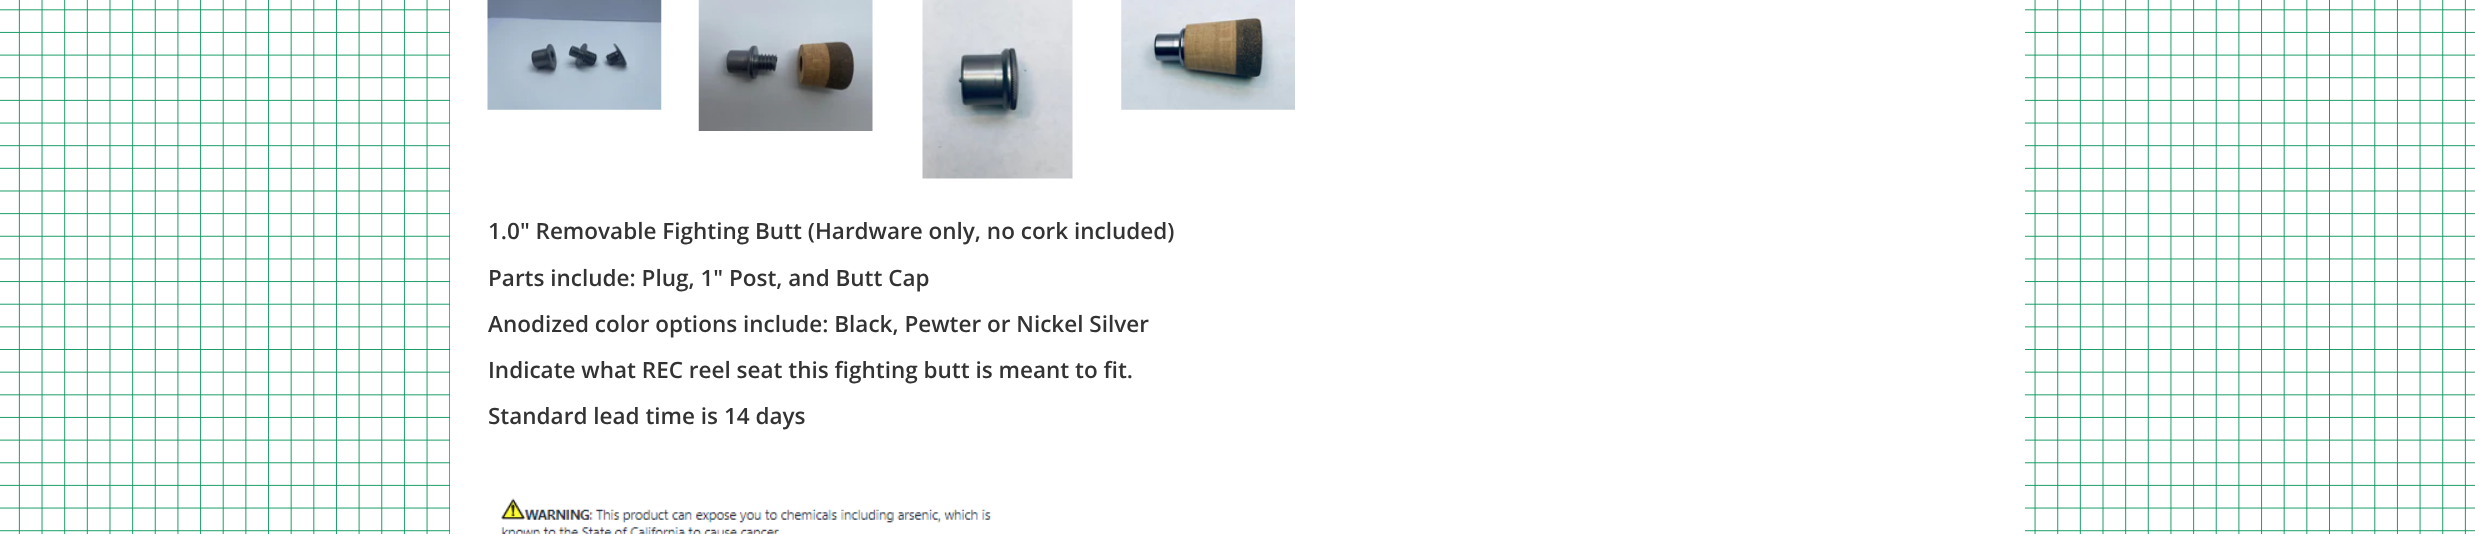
async function draw(canvas) {
  canvas.width = 2475
  canvas.height = 534
  const ctx = canvas.getContext('2d')
  ctx.miterLimit = 4
  ctx.fontKerning = 'normal'
  async function loadImage(src) {
    const img = new Image()
    img.src = src
    await img.decode()
    return img
  }

  ctx.fillStyle = '#fff'
  ctx.fillRect(0, 0, 2475, 534)
  ctx.drawImage(await loadImage('image0.png'), 0, 0, 2475, 534)
  ctx.fillRect(450, 0, 1575, 534)
  ctx.drawImage(await loadImage('image1.png'), 487, 0, 175, 110)
  ctx.drawImage(await loadImage('image2.png'), 698, 0, 175, 131)
  ctx.drawImage(await loadImage('image3.png'), 922, 0, 151, 179)
  ctx.drawImage(await loadImage('image4.png'), 1121, 0, 174, 110)
  ctx.font = '600 22.5px Open Sans'
  ctx.fillStyle = '#333'
  ctx.fillText('1.0" Removable Fighting Butt (Hardware only, no cork included)', 488, 239)
  ctx.fillText('Parts include: Plug, 1" Post, and Butt Cap', 488, 286)
  ctx.fillText('Anodized color options include: Black, Pewter or Nickel Silver', 488, 332)
  ctx.fillText('Indicate what REC reel seat this fighting butt is meant to fit.', 488, 378)
  ctx.fillText('Standard lead time is 14 days', 488, 424)
  ctx.drawImage(await loadImage('image5.png'), 501, 498, 491, 36)
}

draw(document.querySelector('canvas'))
